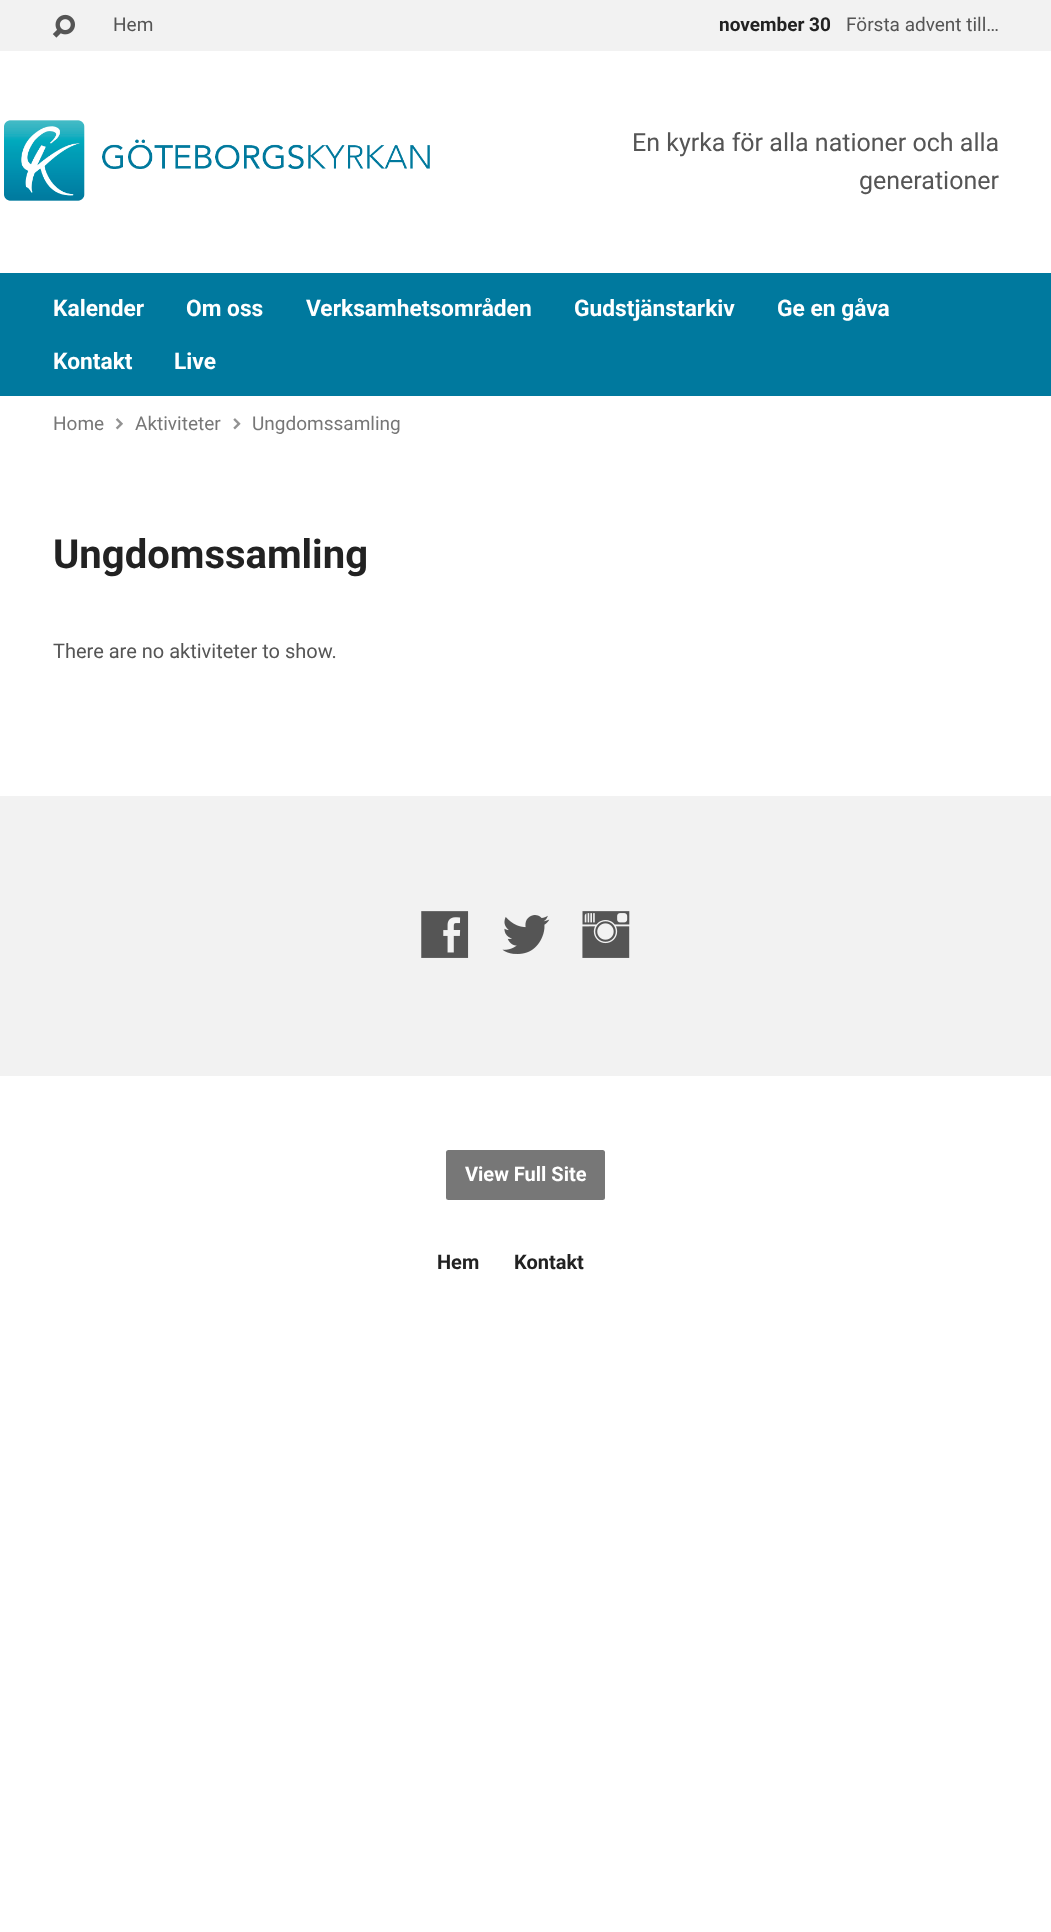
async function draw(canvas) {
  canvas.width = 1051
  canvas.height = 1932
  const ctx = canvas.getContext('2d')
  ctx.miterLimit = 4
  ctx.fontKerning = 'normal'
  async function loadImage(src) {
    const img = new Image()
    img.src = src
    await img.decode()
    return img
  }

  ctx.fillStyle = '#fff'
  ctx.fillRect(0, 0, 1051, 1932)
  ctx.fillStyle = '#f2f2f2'
  ctx.fillRect(0, 0, 1051, 51)
  ctx.drawImage(await loadImage('image0.png'), 52, 14, 23, 24)
  ctx.font = '19px Roboto'
  ctx.fillStyle = '#555'
  ctx.fillText('Hem', 113, 31)
  ctx.font = 'bold 19px Roboto'
  ctx.fillStyle = '#222'
  ctx.fillText('november 30', 719, 31)
  ctx.font = '19px Roboto'
  ctx.fillStyle = '#555'
  ctx.fillText('Första advent till…', 846, 31)
  ctx.drawImage(await loadImage('image1.png'), 4, 120, 426, 81)
  ctx.font = '25px Roboto'
  ctx.fillText('En kyrka för alla nationer och alla', 632, 151)
  ctx.fillText('generationer', 859, 189)
  ctx.fillStyle = '#00799e'
  ctx.fillRect(0, 273, 1051, 123)
  ctx.font = 'bold 22.75px Roboto'
  ctx.fillStyle = '#fff'
  ctx.fillText('Kalender', 53, 316)
  ctx.fillText('Om oss', 186, 316)
  ctx.fillText('Verksamhetsområden', 306, 316)
  ctx.fillText('Gudstjänstarkiv', 574, 316)
  ctx.fillText('Ge en gåva', 777, 316)
  ctx.fillText('Kontakt', 53, 369)
  ctx.fillText('Live', 174, 369)
  ctx.font = '19px Roboto'
  ctx.fillStyle = '#777'
  ctx.fillText('Home', 53, 430)
  ctx.drawImage(await loadImage('image2.png'), 115, 418, 8, 12)
  ctx.fillText('Aktiviteter', 135, 430)
  ctx.drawImage(await loadImage('image3.png'), 233, 418, 8, 12)
  ctx.fillText('Ungdomssamling', 252, 430)
  ctx.font = 'bold 40px Roboto'
  ctx.fillStyle = '#222'
  ctx.fillText('Ungdomssamling', 53, 568)
  ctx.font = '20px Roboto'
  ctx.fillStyle = '#555'
  ctx.fillText('There are no aktiviteter to show.', 53, 658)
  ctx.fillStyle = '#f2f2f2'
  ctx.fillRect(0, 796, 1051, 280)
  ctx.drawImage(await loadImage('image4.png'), 421, 911, 48, 47)
  ctx.drawImage(await loadImage('image5.png'), 502, 915, 48, 39)
  ctx.drawImage(await loadImage('image6.png'), 582, 911, 48, 47)
  ctx.fillStyle = '#777'
  ctx.beginPath()
  ctx.roundRect(446, 1150, 159, 50, 2.5)
  ctx.fill()
  ctx.font = 'bold 20px Roboto'
  ctx.fillStyle = '#fff'
  ctx.fillText('View Full Site', 465, 1181)
  ctx.fillStyle = '#222'
  ctx.fillText('Hem', 437, 1269)
  ctx.fillText('Kontakt', 514, 1269)
}

draw(document.querySelector('canvas'))
